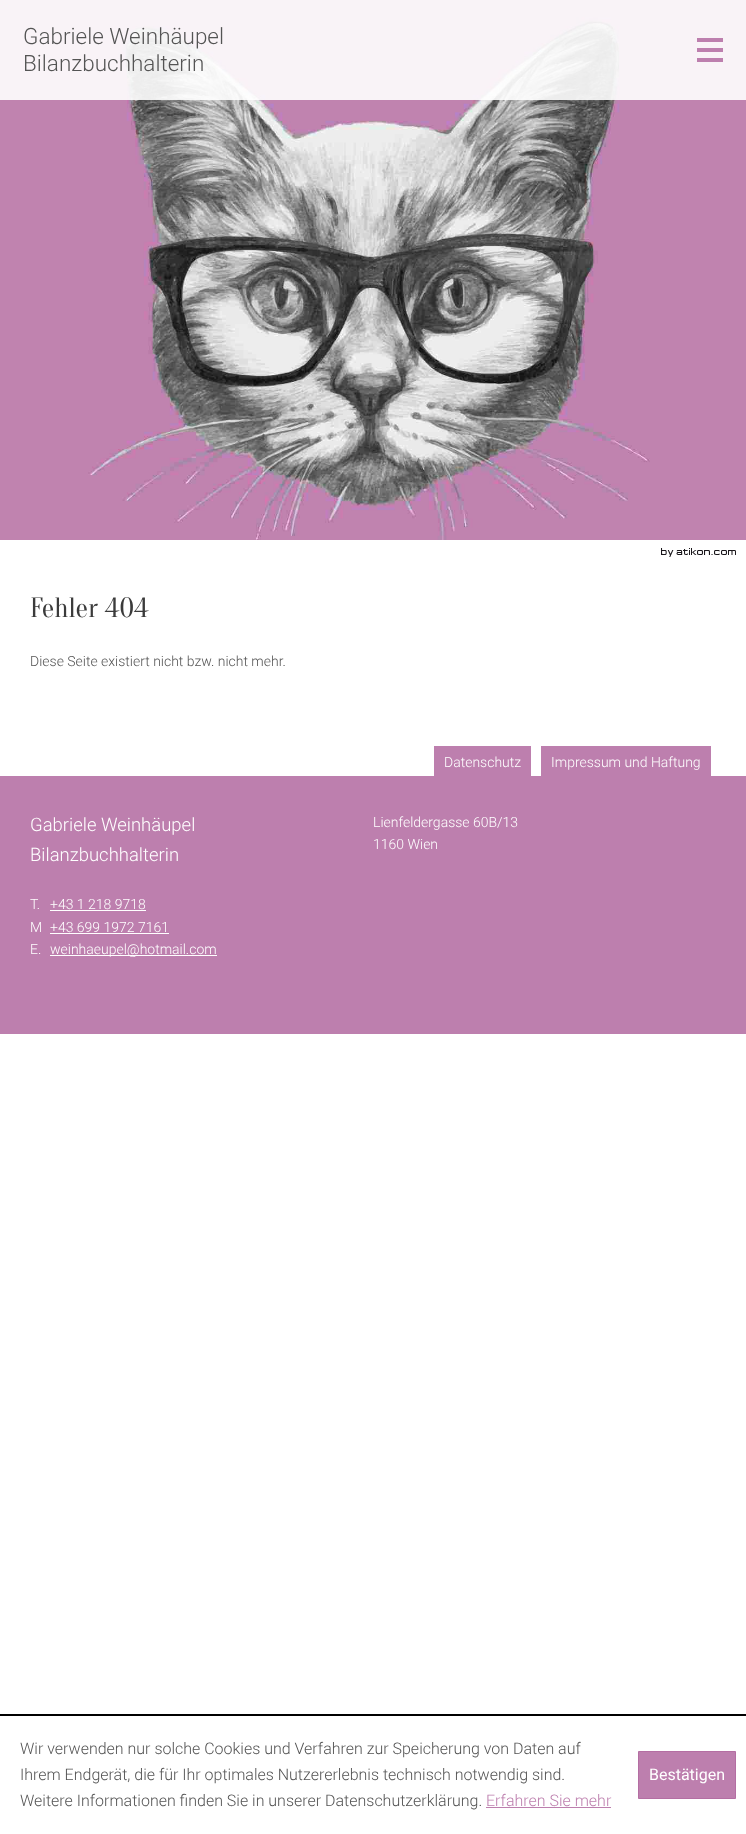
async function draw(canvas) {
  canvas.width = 746
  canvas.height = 1834
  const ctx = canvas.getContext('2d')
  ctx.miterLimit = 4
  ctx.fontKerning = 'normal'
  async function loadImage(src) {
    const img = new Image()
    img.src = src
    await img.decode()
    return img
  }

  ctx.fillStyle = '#fff'
  ctx.fillRect(0, 0, 746, 1834)
  ctx.drawImage(await loadImage('image0.png'), 0, 0, 746, 540)
  ctx.fillStyle = '#ffffffe6'
  ctx.fillRect(0, 0, 746, 100)
  ctx.font = '300 22.5px Roboto'
  ctx.fillStyle = '#545454'
  ctx.fillText('Gabriele Weinhäupel', 23, 44)
  ctx.fillText('Bilanzbuchhalterin', 23, 71)
  ctx.fillStyle = '#bd7fae'
  ctx.fillRect(697, 38, 26, 4)
  ctx.fillRect(697, 48, 26, 4)
  ctx.fillRect(697, 58, 26, 4)
  ctx.drawImage(await loadImage('image1.png'), 661, 548, 75, 9)
  ctx.font = '28px Oranienbaum'
  ctx.fillStyle = '#3b3b3b'
  ctx.fillText('Fehler 404', 30, 617)
  ctx.font = '300 14px Roboto'
  ctx.fillStyle = '#545454'
  ctx.fillText('Diese Seite existiert nicht bzw. nicht mehr.', 30, 666)
  ctx.fillStyle = '#bd7fae'
  ctx.fillRect(0, 776, 746, 258)
  ctx.fillRect(434, 746, 97, 30)
  ctx.fillStyle = '#fff'
  ctx.fillText('Datenschutz', 444, 767)
  ctx.fillStyle = '#bd7fae'
  ctx.fillRect(541, 746, 170, 30)
  ctx.fillStyle = '#fff'
  ctx.fillText('Impressum und Haftung', 551, 767)
  ctx.font = '300 18.5px Roboto'
  ctx.fillText('Gabriele Weinhäupel', 30, 831)
  ctx.fillText('Bilanzbuchhalterin', 30, 861)
  ctx.font = '300 14px Roboto'
  ctx.fillText('Lienfeldergasse 60B/13', 373, 827)
  ctx.fillText('1160 Wien', 373, 849)
  ctx.fillText('T.', 30, 909)
  ctx.fillText('+43 1 218 9718', 50, 909)
  ctx.fillRect(50, 910, 96, 1)
  ctx.fillText('M', 30, 932)
  ctx.fillText('+43 699 1972 7161', 50, 932)
  ctx.fillRect(50, 933, 119, 1)
  ctx.fillText('E.', 30, 954)
  ctx.fillRect(50, 955, 167, 1)
  ctx.fillText('weinhaeupel@hotmail.com', 50, 954)
  ctx.fillStyle = '#000'
  ctx.fillRect(0, 1714, 746, 2)
  ctx.font = '300 16px Roboto'
  ctx.fillStyle = '#545454'
  ctx.fillText('Wir verwenden nur solche Cookies und Verfahren zur Speicherung von Daten auf', 20, 1754)
  ctx.fillText('Ihrem Endgerät, die für Ihr optimales Nutzererlebnis technisch notwendig sind.', 20, 1780)
  ctx.fillText('Weitere Informationen finden Sie in unserer Datenschutzerklärung.', 20, 1806)
  ctx.fillStyle = '#bd7fae'
  ctx.fillText('Erfahren Sie mehr', 486, 1806)
  ctx.fillRect(486, 1807, 125, 1)
  ctx.beginPath()
  ctx.rect(638.5, 1751.5, 97, 47)
  ctx.fill()
  ctx.strokeStyle = '#b46ea3'
  ctx.stroke()
  ctx.font = '16px Roboto'
  ctx.fillStyle = '#fff'
  ctx.fillText('Bestätigen', 649, 1780)
}

draw(document.querySelector('canvas'))
